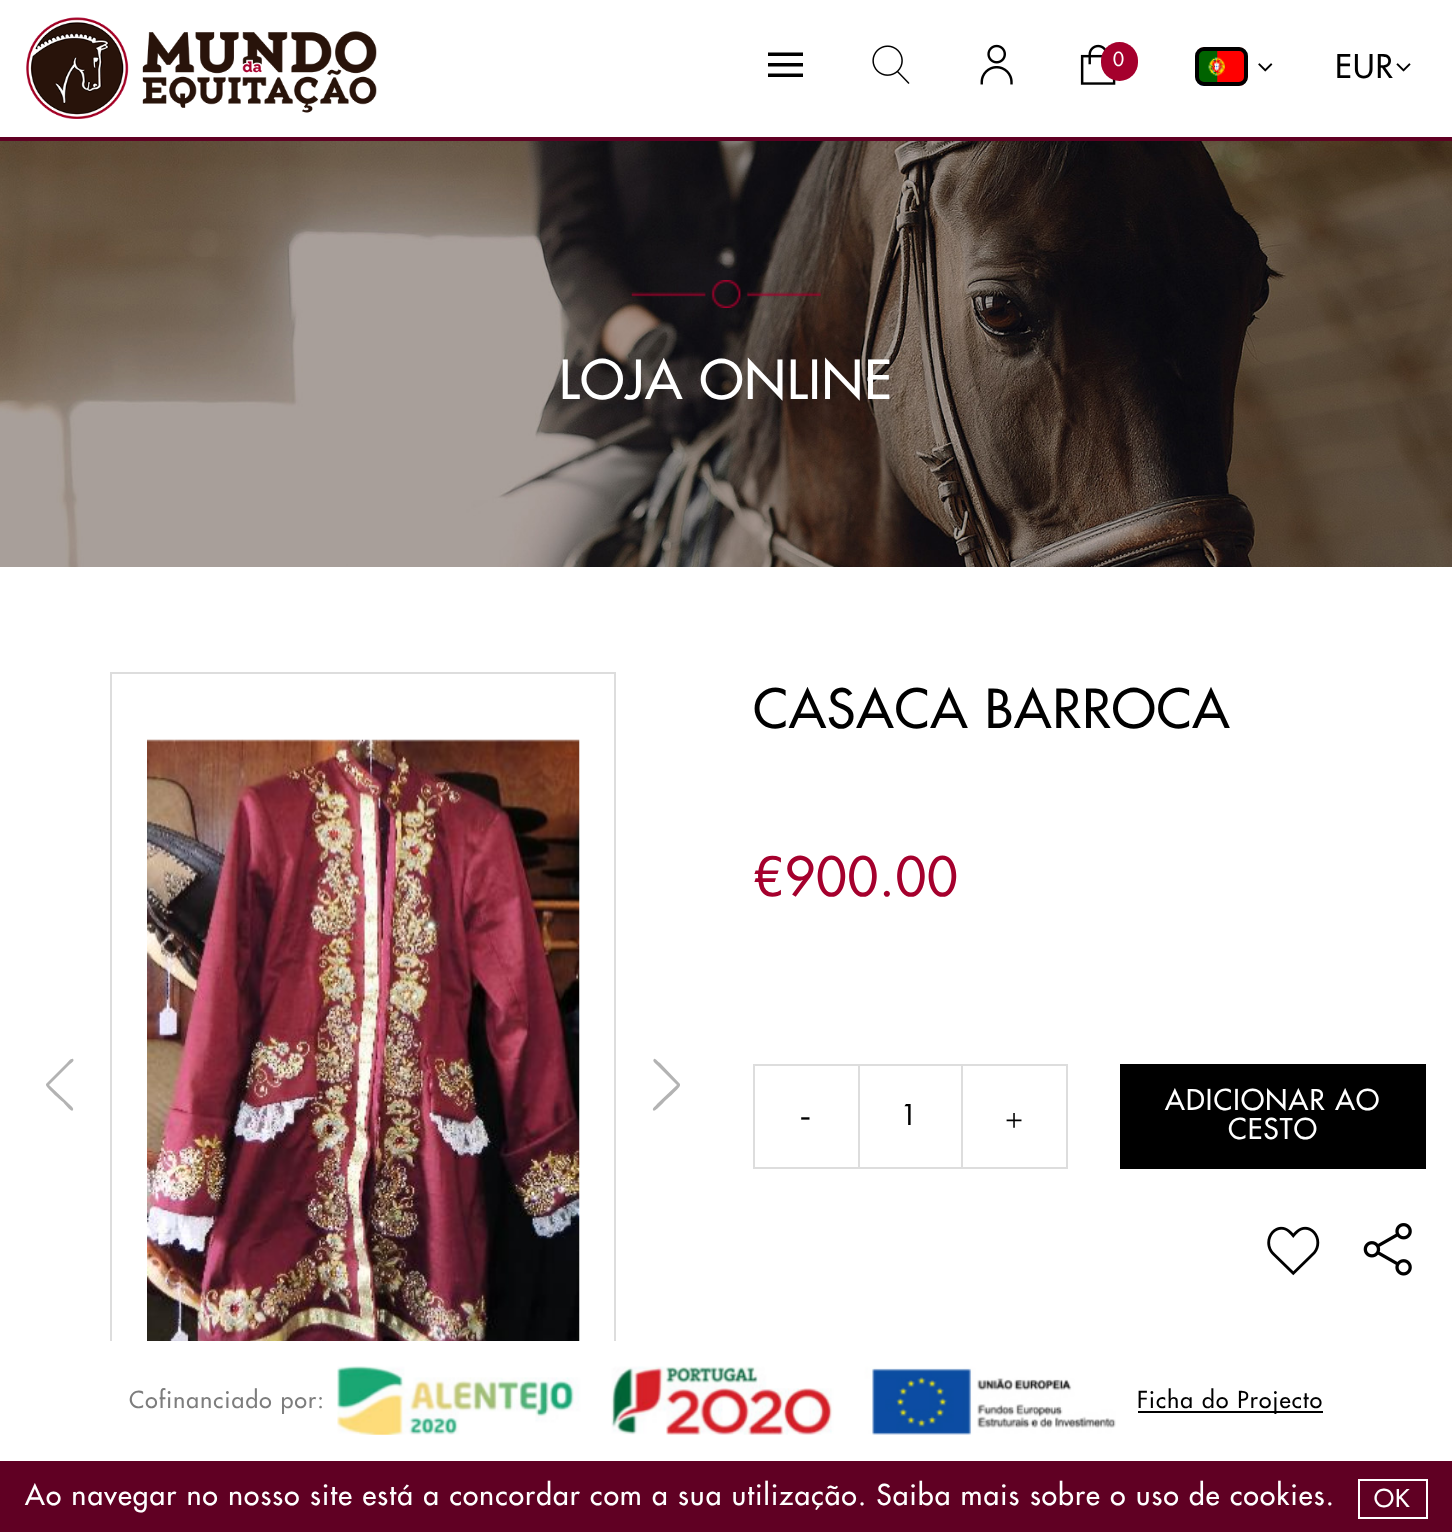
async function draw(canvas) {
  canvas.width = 1452
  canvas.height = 1532
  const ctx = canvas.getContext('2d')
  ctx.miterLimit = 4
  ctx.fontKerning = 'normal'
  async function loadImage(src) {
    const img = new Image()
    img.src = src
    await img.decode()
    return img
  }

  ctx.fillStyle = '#fff'
  ctx.fillRect(0, 0, 1452, 1532)
  ctx.fillStyle = '#600023'
  ctx.fillRect(0, 137, 1452, 4)
  ctx.drawImage(await loadImage('image0.png'), 26, 17, 351, 102)
  ctx.fillStyle = '#000'
  ctx.beginPath()
  ctx.moveTo(768, 52.5)
  ctx.lineTo(803, 52.5)
  ctx.lineTo(803, 56)
  ctx.lineTo(768, 56)
  ctx.closePath()
  ctx.moveTo(768, 63)
  ctx.lineTo(803, 63)
  ctx.lineTo(803, 66.5)
  ctx.lineTo(768, 66.5)
  ctx.closePath()
  ctx.moveTo(768, 73.5)
  ctx.lineTo(803, 73.5)
  ctx.lineTo(803, 77)
  ctx.lineTo(768, 77)
  ctx.closePath()
  ctx.fill()
  ctx.drawImage(await loadImage('image1.png'), 872, 45, 38, 39)
  ctx.drawImage(await loadImage('image2.png'), 980, 44, 33, 41)
  ctx.drawImage(await loadImage('image3.png'), 1080, 44, 36, 41)
  ctx.fillStyle = '#a5002d'
  ctx.beginPath()
  ctx.roundRect(1101, 42, 37, 39, 18.5)
  ctx.fill()
  ctx.letterSpacing = '1.22px'
  ctx.font = '500 19px Futura'
  ctx.fillStyle = '#fff'
  ctx.fillText('0', 1113, 66)
  ctx.drawImage(await loadImage('image4.png'), 1198, 47, 47, 39)
  ctx.beginPath()
  ctx.roundRect(1197, 49, 49, 35, 7)
  ctx.strokeStyle = '#000'
  ctx.lineWidth = 4
  ctx.stroke()
  ctx.drawImage(await loadImage('image5.png'), 1258, 63, 15, 9)
  ctx.font = '500 32px Futura'
  ctx.fillStyle = '#000'
  ctx.fillText('EUR', 1335, 78)
  ctx.drawImage(await loadImage('image6.png'), 1396, 63, 15, 9)
  ctx.drawImage(await loadImage('image7.png'), 0, 141, 1452, 426)
  ctx.drawImage(await loadImage('image8.png'), 631, 280, 190, 28)
  ctx.font = '500 52.5px Futura'
  ctx.fillStyle = '#fff'
  ctx.fillText('LOJA ONLINE', 559, 399)
  ctx.strokeStyle = '#ddd'
  ctx.lineWidth = 2
  ctx.strokeRect(111, 673, 504, 772)
  ctx.fillStyle = '#b3b3b3'
  ctx.beginPath()
  ctx.moveTo(46, 1084)
  ctx.lineTo(67, 1063)
  ctx.bezierCurveTo(68, 1062, 71, 1058, 73, 1059)
  ctx.bezierCurveTo(75, 1061, 71, 1063, 69, 1065)
  ctx.lineTo(49, 1085)
  ctx.lineTo(69, 1104)
  ctx.bezierCurveTo(71, 1106, 74, 1108, 73, 1110)
  ctx.bezierCurveTo(72, 1112, 70, 1110, 63, 1102)
  ctx.bezierCurveTo(60, 1100, 46, 1087, 46, 1085)
  ctx.closePath()
  ctx.fill()
  ctx.drawImage(await loadImage('image9.png'), 147, 739, 433, 602)
  ctx.beginPath()
  ctx.moveTo(680, 1084)
  ctx.lineTo(660, 1063)
  ctx.bezierCurveTo(658, 1062, 655, 1058, 654, 1059)
  ctx.bezierCurveTo(652, 1061, 655, 1063, 657, 1065)
  ctx.lineTo(677, 1085)
  ctx.lineTo(657, 1104)
  ctx.bezierCurveTo(656, 1106, 652, 1108, 653, 1110)
  ctx.bezierCurveTo(654, 1112, 656, 1110, 664, 1102)
  ctx.bezierCurveTo(666, 1100, 681, 1087, 680, 1085)
  ctx.closePath()
  ctx.fill()
  ctx.fillStyle = '#000'
  ctx.fillText('CASACA BARROCA', 753, 728)
  ctx.fillStyle = '#a5002d'
  ctx.fillText('€900.00', 753, 896)
  ctx.fillStyle = '#ddd'
  ctx.fillRect(753, 1064, 105, 2)
  ctx.fillRect(753, 1167, 105, 2)
  ctx.fillRect(753, 1064, 2, 105)
  ctx.font = '32px Liberation Serif'
  ctx.fillStyle = '#000'
  ctx.fillText('-', 800, 1126)
  ctx.strokeRect(859, 1065, 103, 103)
  ctx.font = '500 28px Futura'
  ctx.fillText('1', 901, 1125)
  ctx.fillStyle = '#ddd'
  ctx.fillRect(963, 1064, 105, 2)
  ctx.fillRect(1066, 1064, 2, 105)
  ctx.fillRect(963, 1167, 105, 2)
  ctx.font = '32px Liberation Serif'
  ctx.fillStyle = '#000'
  ctx.fillText('+', 1005, 1131)
  ctx.fillRect(1120, 1064, 306, 105)
  ctx.font = '500 28px Futura'
  ctx.fillStyle = '#fff'
  ctx.fillText('ADICIONAR AO', 1165, 1110)
  ctx.fillText('CESTO', 1228, 1139)
  ctx.drawImage(await loadImage('image10.png'), 1267, 1226, 53, 50)
  ctx.drawImage(await loadImage('image11.png'), 1363, 1223, 49, 53)
  ctx.fillRect(110, 1341, 506, 105)
  ctx.font = '500 22.75px Futura'
  ctx.fillStyle = '#7d7d7d'
  ctx.fillText('Cofinanciado por:', 129, 1408)
  ctx.drawImage(await loadImage('image12.png'), 337, 1366, 779, 69)
  ctx.fillStyle = '#000'
  ctx.fillRect(1138, 1411, 185, 2)
  ctx.fillText('Ficha do Projecto', 1137, 1408)
  ctx.fillStyle = '#600023'
  ctx.fillRect(0, 1461, 1452, 71)
  ctx.font = '500 28px Futura'
  ctx.fillStyle = '#fff'
  ctx.fillText('Ao navegar no nosso site está a concordar com a sua utilização. Saiba mais sobre o uso de cookies.', 25, 1505)
  ctx.strokeStyle = '#fff'
  ctx.strokeRect(1359, 1480, 68, 38)
  ctx.font = '500 24px Futura'
  ctx.fillText('OK', 1374, 1507)
}

draw(document.querySelector('canvas'))
